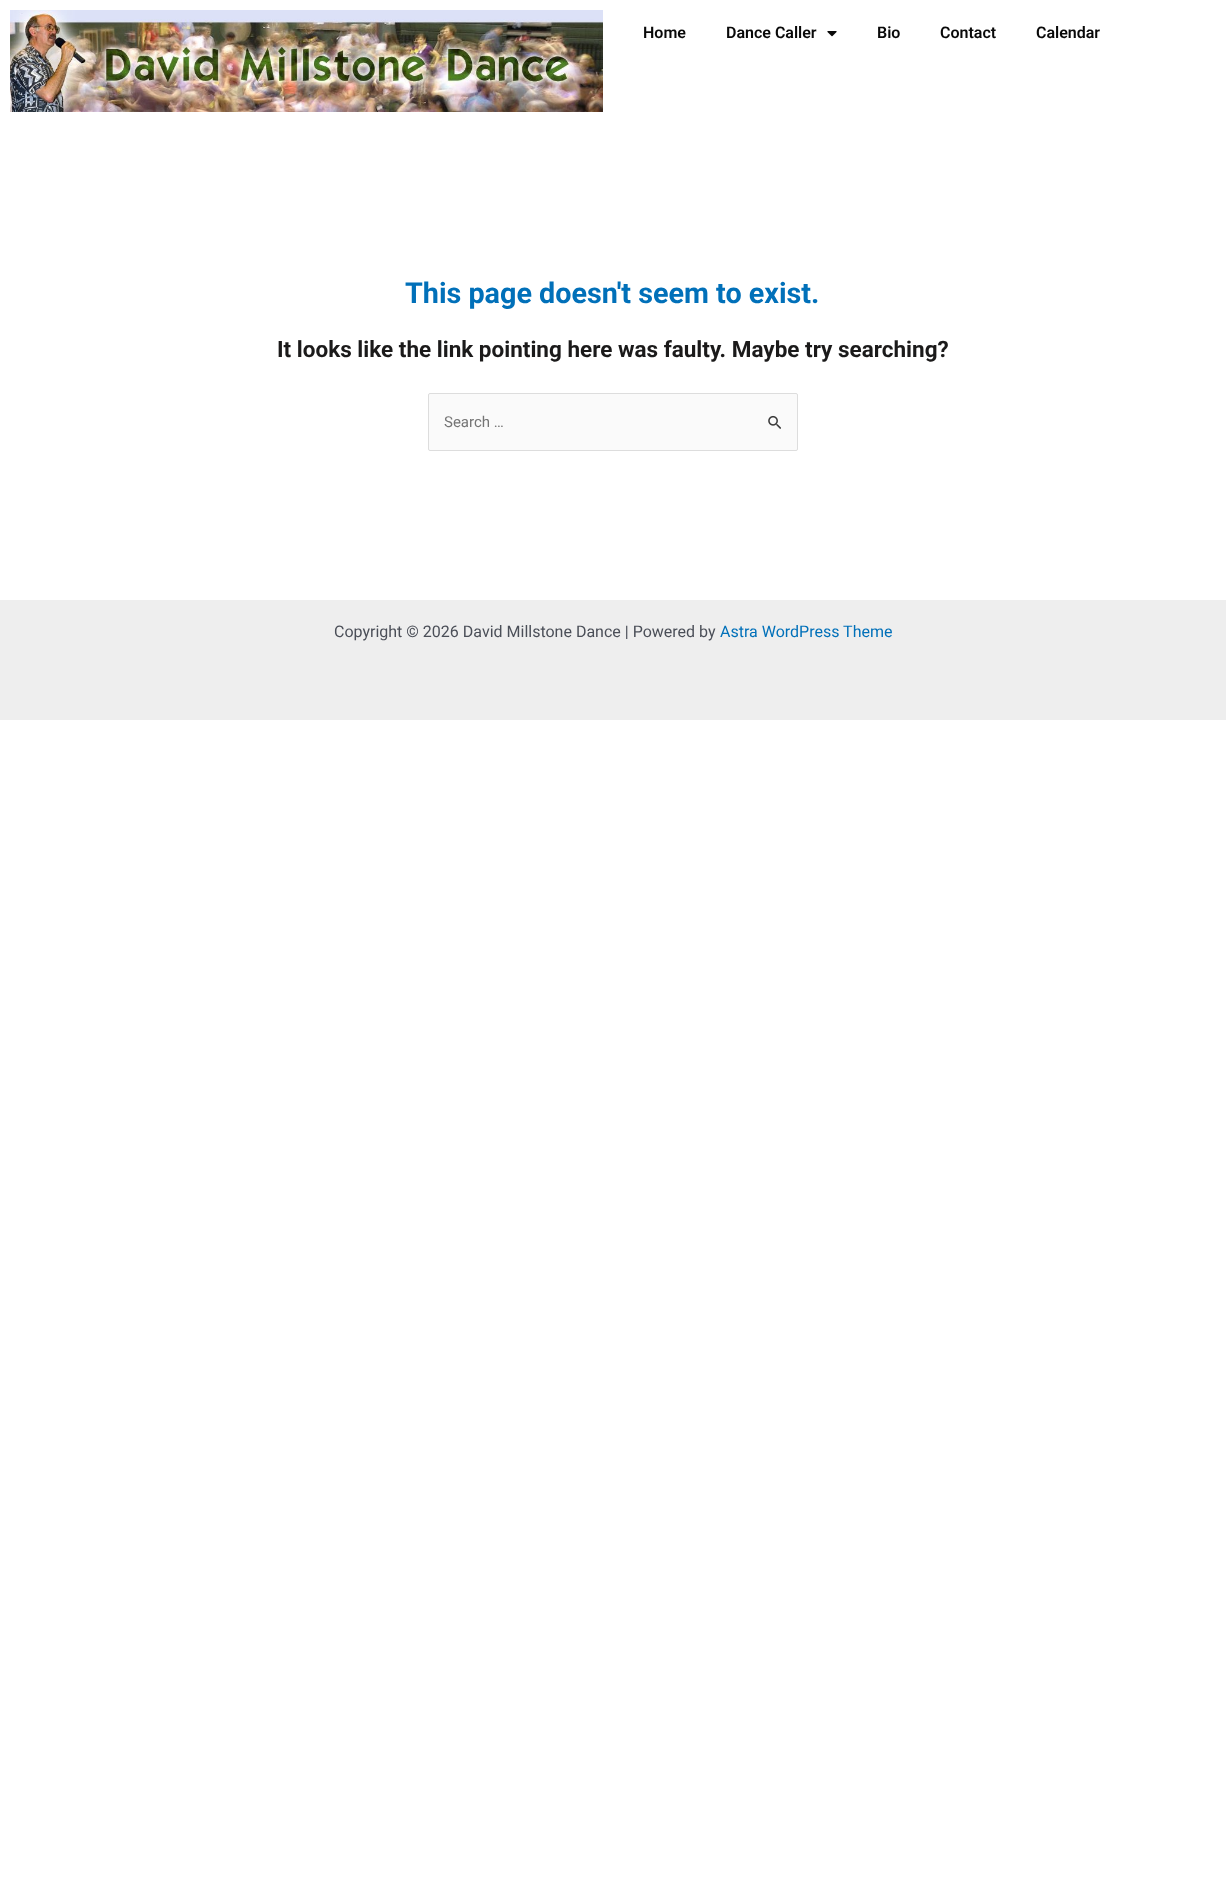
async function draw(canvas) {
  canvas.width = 1226
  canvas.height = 1893
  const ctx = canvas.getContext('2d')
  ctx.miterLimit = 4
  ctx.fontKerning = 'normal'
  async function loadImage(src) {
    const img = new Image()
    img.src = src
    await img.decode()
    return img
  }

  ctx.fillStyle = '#fff'
  ctx.fillRect(0, 0, 1226, 1893)
  ctx.drawImage(await loadImage('image0.png'), 10, 10, 593, 102)
  ctx.font = '600 16px Roboto'
  ctx.fillStyle = '#090909'
  ctx.fillText('Home', 643, 38)
  ctx.fillText('Dance Caller', 726, 38)
  ctx.drawImage(await loadImage('image1.png'), 827, 31, 10, 6)
  ctx.fillText('Bio', 877, 38)
  ctx.fillText('Contact', 940, 38)
  ctx.fillText('Calendar', 1036, 38)
  ctx.font = 'bold 28.75px Roboto'
  ctx.fillStyle = '#0170b9'
  ctx.fillText('This page doesn\'t seem to exist.', 405, 303)
  ctx.font = 'bold 22.5px Roboto'
  ctx.fillStyle = '#1b1a1a'
  ctx.fillText('It looks like the link pointing here was faulty. Maybe try searching?', 277, 357)
  ctx.fillStyle = '#fafafa'
  ctx.beginPath()
  ctx.roundRect(428.5, 393.5, 369, 57, 1.5)
  ctx.fill()
  ctx.strokeStyle = '#ddd'
  ctx.stroke()
  ctx.font = '15px Roboto'
  ctx.fillStyle = '#757575'
  ctx.fillText('Search …', 444, 427)
  ctx.drawImage(await loadImage('image2.png'), 768, 415, 13, 14)
  ctx.fillStyle = '#eee'
  ctx.fillRect(0, 600, 1226, 120)
  ctx.font = '16px Roboto'
  ctx.fillStyle = '#4b4f58'
  ctx.fillText('Copyright © 2026 David Millstone Dance | Powered by', 334, 637)
  ctx.fillStyle = '#0170b9'
  ctx.fillText('Astra WordPress Theme', 720, 637)
}

draw(document.querySelector('canvas'))
